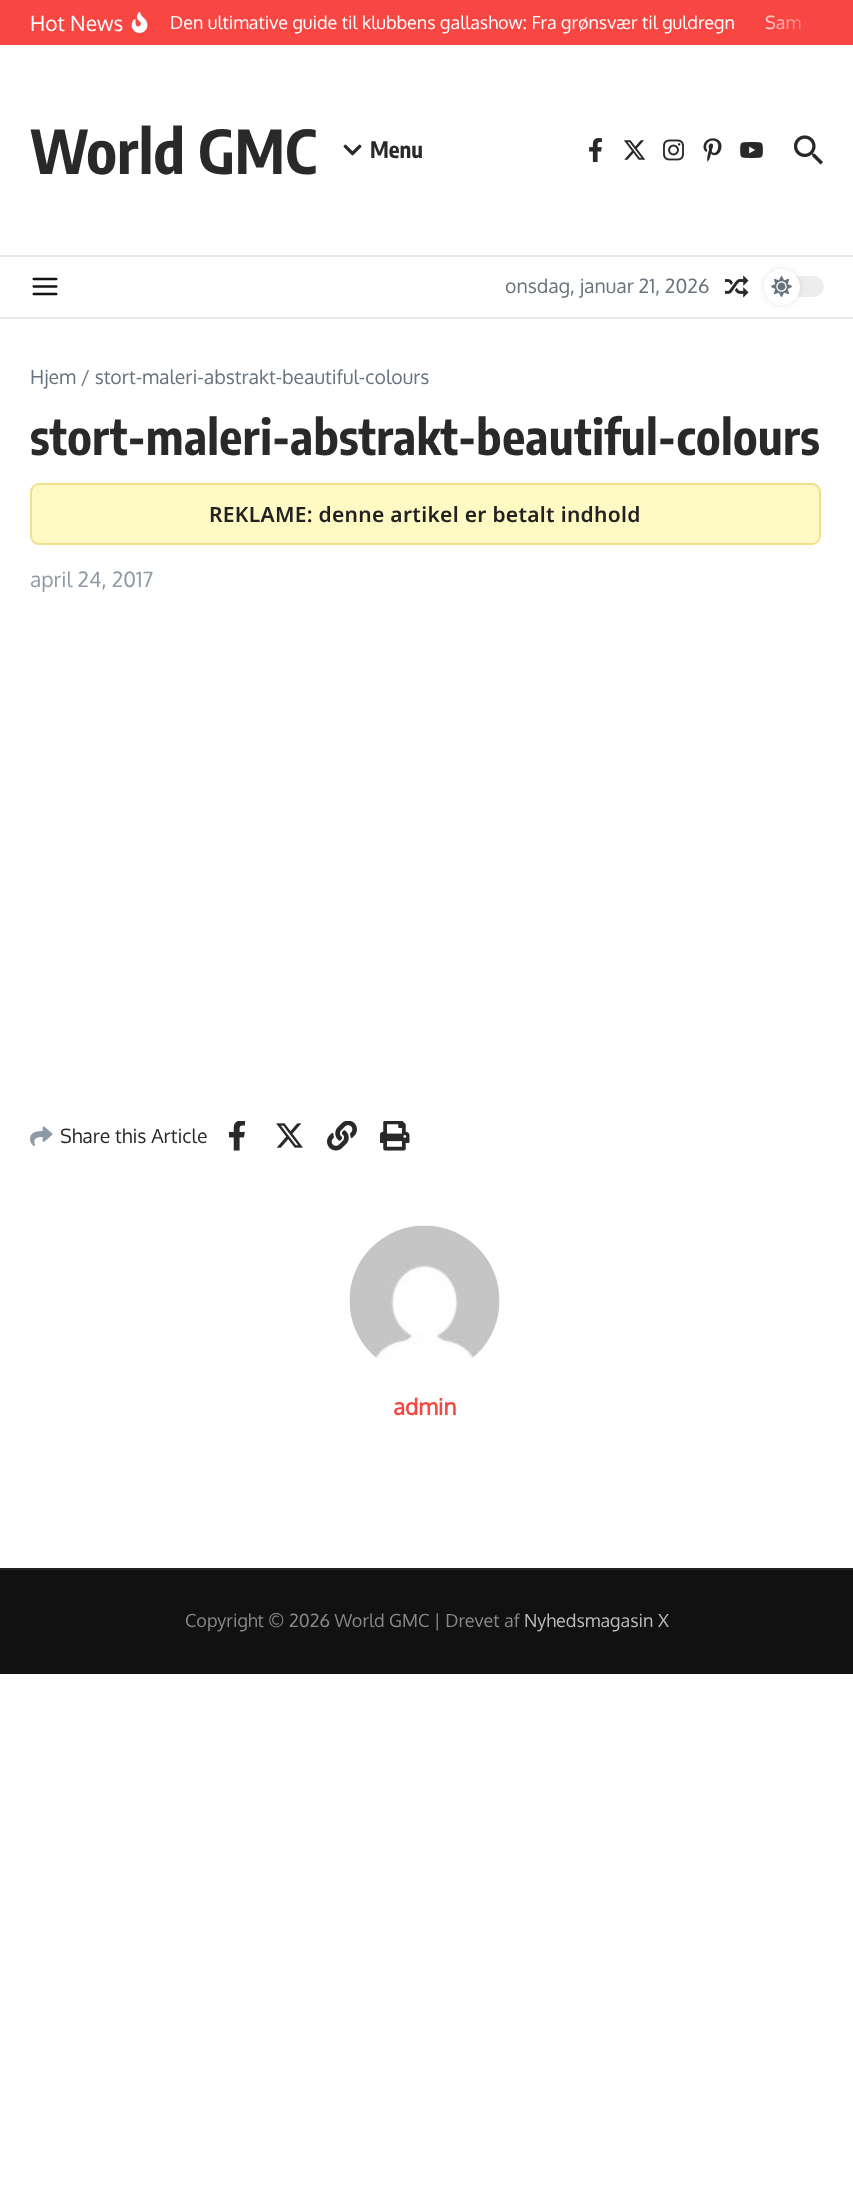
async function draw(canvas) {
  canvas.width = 853
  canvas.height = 2205
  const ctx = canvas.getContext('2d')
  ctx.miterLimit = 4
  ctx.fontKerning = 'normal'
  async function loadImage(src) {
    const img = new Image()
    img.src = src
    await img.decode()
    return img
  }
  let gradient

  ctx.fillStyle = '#fff'
  ctx.fillRect(0, 0, 853, 2205)
  ctx.fillStyle = '#f84643'
  ctx.fillRect(0, 0, 853, 45)
  ctx.font = '21px Oxygen'
  ctx.fillStyle = '#fff'
  ctx.fillText('Hot News', 30, 31)
  ctx.drawImage(await loadImage('image0.png'), 131, 12, 17, 21)
  ctx.font = '18px Oxygen'
  ctx.fillText('Den ultimative guide til klubbens gallashow: Fra grønsvær til guldregn', 170, 29)
  ctx.fillText('Sam', 765, 29)
  gradient = ctx.createLinearGradient(749, 23, 824, 22)
  gradient.addColorStop(0, '#f8464300')
  gradient.addColorStop(1, '#f84643')
  ctx.fillStyle = gradient
  ctx.fillRect(765, 15, 36, 15)
  ctx.fillStyle = '#e8e8e8'
  ctx.fillRect(0, 255, 853, 2)
  ctx.font = 'bold 60px Encode Sans Condensed'
  ctx.fillStyle = '#292929'
  ctx.fillText('World GMC', 30, 174)
  ctx.drawImage(await loadImage('image1.png'), 343, 144, 19, 12)
  ctx.font = 'bold 22.5px Encode Sans Condensed'
  ctx.fillText('Menu', 370, 158)
  ctx.drawImage(await loadImage('image2.png'), 589, 138, 13, 24)
  ctx.drawImage(await loadImage('image3.png'), 623, 140, 23, 20)
  ctx.drawImage(await loadImage('image4.png'), 663, 139, 21, 22)
  ctx.drawImage(await loadImage('image5.png'), 703, 138, 19, 24)
  ctx.drawImage(await loadImage('image6.png'), 740, 142, 23, 16)
  ctx.drawImage(await loadImage('image7.png'), 794, 135, 29, 30)
  ctx.fillStyle = '#e8e8e8'
  ctx.fillRect(0, 317, 853, 2)
  ctx.drawImage(await loadImage('image8.png'), 32, 277, 26, 19)
  ctx.font = '19.5px Oxygen'
  ctx.fillStyle = '#67737e'
  ctx.fillText('onsdag, januar 21, 2026', 505, 293)
  ctx.drawImage(await loadImage('image9.png'), 725, 275, 24, 23)
  ctx.fillStyle = '#ededed'
  ctx.beginPath()
  ctx.roundRect(764, 276, 60, 21, 10.5)
  ctx.fill()
  ctx.fillStyle = '#0000001a'
  ctx.filter = 'blur(3px)'
  ctx.beginPath()
  ctx.roundRect(764, 269, 36, 36, 18)
  ctx.fill()
  ctx.filter = 'none'
  ctx.fillStyle = '#fff'
  ctx.beginPath()
  ctx.arc(782, 287, 18, 0, 2 * Math.PI)
  ctx.fill()
  ctx.drawImage(await loadImage('image10.png'), 771, 276, 21, 21)
  ctx.fillStyle = '#67737e'
  ctx.fillText('Hjem / stort-maleri-abstrakt-beautiful-colours', 30, 384)
  ctx.letterSpacing = '0.3px'
  ctx.font = 'bold 48px Encode Sans Condensed'
  ctx.fillStyle = '#292929'
  ctx.fillText('stort-maleri-abstrakt-beautiful-colours', 30, 455)
  ctx.fillStyle = '#fff9c4'
  ctx.beginPath()
  ctx.roundRect(31, 484, 789, 60, 8)
  ctx.fill()
  ctx.strokeStyle = '#f0e08a'
  ctx.lineWidth = 2
  ctx.stroke()
  ctx.font = '600 21px Noto Sans'
  ctx.fillStyle = '#222'
  ctx.fillText('REKLAME: denne artikel er betalt indhold', 209, 522)
  ctx.letterSpacing = '0px'
  ctx.font = '21px Oxygen'
  ctx.fillStyle = '#8e9ba7'
  ctx.fillText('april 24, 2017', 30, 587)
  ctx.drawImage(await loadImage('image11.png'), 30, 1126, 23, 20)
  ctx.font = '19.5px Oxygen'
  ctx.fillStyle = '#292929'
  ctx.fillText('Share this Article', 60, 1143)
  ctx.drawImage(await loadImage('image12.png'), 228, 1121, 18, 30)
  ctx.drawImage(await loadImage('image13.png'), 276, 1123, 27, 25)
  ctx.drawImage(await loadImage('image14.png'), 327, 1121, 30, 30)
  ctx.drawImage(await loadImage('image15.png'), 380, 1121, 30, 30)
  ctx.drawImage(await loadImage('image16.png'), 349, 1225, 151, 133)
  ctx.font = 'bold 22.5px Oxygen'
  ctx.fillStyle = '#f84643'
  ctx.fillText('admin', 393, 1415)
  ctx.fillStyle = '#111'
  ctx.fillRect(0, 1570, 853, 104)
  ctx.fillStyle = '#222'
  ctx.fillRect(0, 1568, 853, 2)
  ctx.font = '18px Oxygen'
  ctx.fillStyle = '#888'
  ctx.fillText('Copyright © 2026 World GMC | Drevet af', 185, 1627)
  ctx.fillStyle = '#bcbcbc'
  ctx.fillText('Nyhedsmagasin X', 524, 1627)
}

draw(document.querySelector('canvas'))
